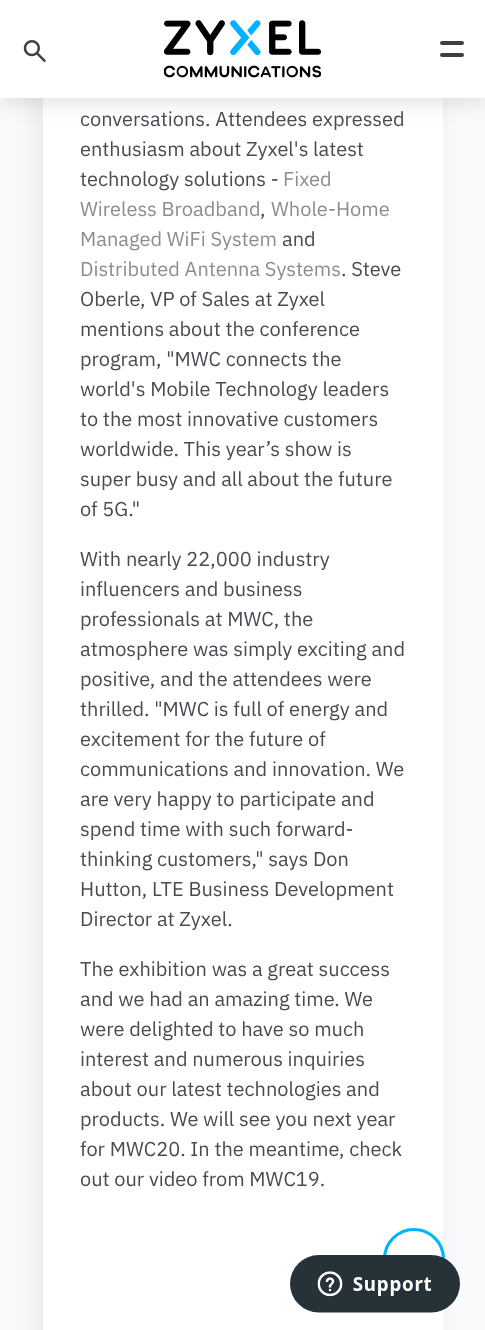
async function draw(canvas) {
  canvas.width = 485
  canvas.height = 1330
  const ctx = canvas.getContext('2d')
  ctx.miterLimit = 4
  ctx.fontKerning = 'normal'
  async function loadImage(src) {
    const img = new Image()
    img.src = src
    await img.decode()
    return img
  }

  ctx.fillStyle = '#f8fafc'
  ctx.fillRect(0, 0, 485, 1330)
  ctx.fillStyle = '#494b4d1a'
  ctx.filter = 'blur(12.5px)'
  ctx.beginPath()
  ctx.roundRect(36, -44, 400, 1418, 6)
  ctx.fill()
  ctx.filter = 'none'
  ctx.fillStyle = '#fff'
  ctx.fillRect(43, 98, 400, 1232)
  ctx.fillStyle = '#0000001a'
  ctx.filter = 'blur(9.5px)'
  ctx.beginPath()
  ctx.rect(0, 6, 485, 98)
  ctx.fill()
  ctx.filter = 'none'
  ctx.fillStyle = '#fff'
  ctx.fillRect(0, 0, 485, 98)
  ctx.drawImage(await loadImage('image0.png'), 23, 40, 23, 22)
  ctx.drawImage(await loadImage('image1.png'), 164, 20, 157, 58)
  ctx.fillStyle = '#404040'
  ctx.beginPath()
  ctx.roundRect(440, 41, 24, 4, 2)
  ctx.fill()
  ctx.beginPath()
  ctx.roundRect(440, 53, 24, 4, 2)
  ctx.fill()
  ctx.font = '20px IBM Plex Sans'
  ctx.fillStyle = '#494a52'
  ctx.fillText('conversations. Attendees expressed', 80, 126)
  ctx.fillText('enthusiasm about Zyxel\'s latest', 80, 156)
  ctx.fillText('technology solutions -', 80, 186)
  ctx.fillStyle = '#8c8c8c'
  ctx.fillText('Fixed', 283, 186)
  ctx.fillText('Wireless Broadband', 80, 216)
  ctx.fillStyle = '#494a52'
  ctx.fillText(',', 260, 216)
  ctx.fillStyle = '#8c8c8c'
  ctx.fillText('Whole-Home', 271, 216)
  ctx.fillText('Managed WiFi System', 80, 246)
  ctx.fillStyle = '#494a52'
  ctx.fillText('and', 282, 246)
  ctx.fillStyle = '#8c8c8c'
  ctx.fillText('Distributed Antenna Systems', 80, 276)
  ctx.fillStyle = '#494a52'
  ctx.fillText('. Steve', 341, 276)
  ctx.fillText('Oberle, VP of Sales at Zyxel', 80, 306)
  ctx.fillText('mentions about the conference', 80, 336)
  ctx.fillText('program, "MWC connects the', 80, 366)
  ctx.fillText('world\'s Mobile Technology leaders', 80, 396)
  ctx.fillText('to the most innovative customers', 80, 426)
  ctx.fillText('worldwide. This year’s show is', 80, 456)
  ctx.fillText('super busy and all about the future', 80, 486)
  ctx.fillText('of 5G."', 80, 516)
  ctx.fillText('With nearly 22,000 industry', 80, 566)
  ctx.fillText('influencers and business', 80, 596)
  ctx.fillText('professionals at MWC, the', 80, 626)
  ctx.fillText('atmosphere was simply exciting and', 80, 656)
  ctx.fillText('positive, and the attendees were', 80, 686)
  ctx.fillText('thrilled. "MWC is full of energy and', 80, 716)
  ctx.fillText('excitement for the future of', 80, 746)
  ctx.fillText('communications and innovation. We', 80, 776)
  ctx.fillText('are very happy to participate and', 80, 806)
  ctx.fillText('spend time with such forward-', 80, 836)
  ctx.fillText('thinking customers," says Don', 80, 866)
  ctx.fillText('Hutton, LTE Business Development', 80, 896)
  ctx.fillText('Director at Zyxel.', 80, 926)
  ctx.fillText('The exhibition was a great success', 80, 976)
  ctx.fillText('and we had an amazing time. We', 80, 1006)
  ctx.fillText('were delighted to have so much', 80, 1036)
  ctx.fillText('interest and numerous inquiries', 80, 1066)
  ctx.fillText('about our latest technologies and', 80, 1096)
  ctx.fillText('products. We will see you next year', 80, 1126)
  ctx.fillText('for MWC20. In the meantime, check', 80, 1156)
  ctx.fillText('out our video from MWC19.', 80, 1186)
  ctx.fillStyle = '#fff'
  ctx.beginPath()
  ctx.arc(414, 1259, 29.5, 0, 2 * Math.PI)
  ctx.fill()
  ctx.strokeStyle = '#00b2ff'
  ctx.lineWidth = 3
  ctx.stroke()
  ctx.drawImage(await loadImage('image2.png'), 290, 1255, 170, 58)
}

draw(document.querySelector('canvas'))
